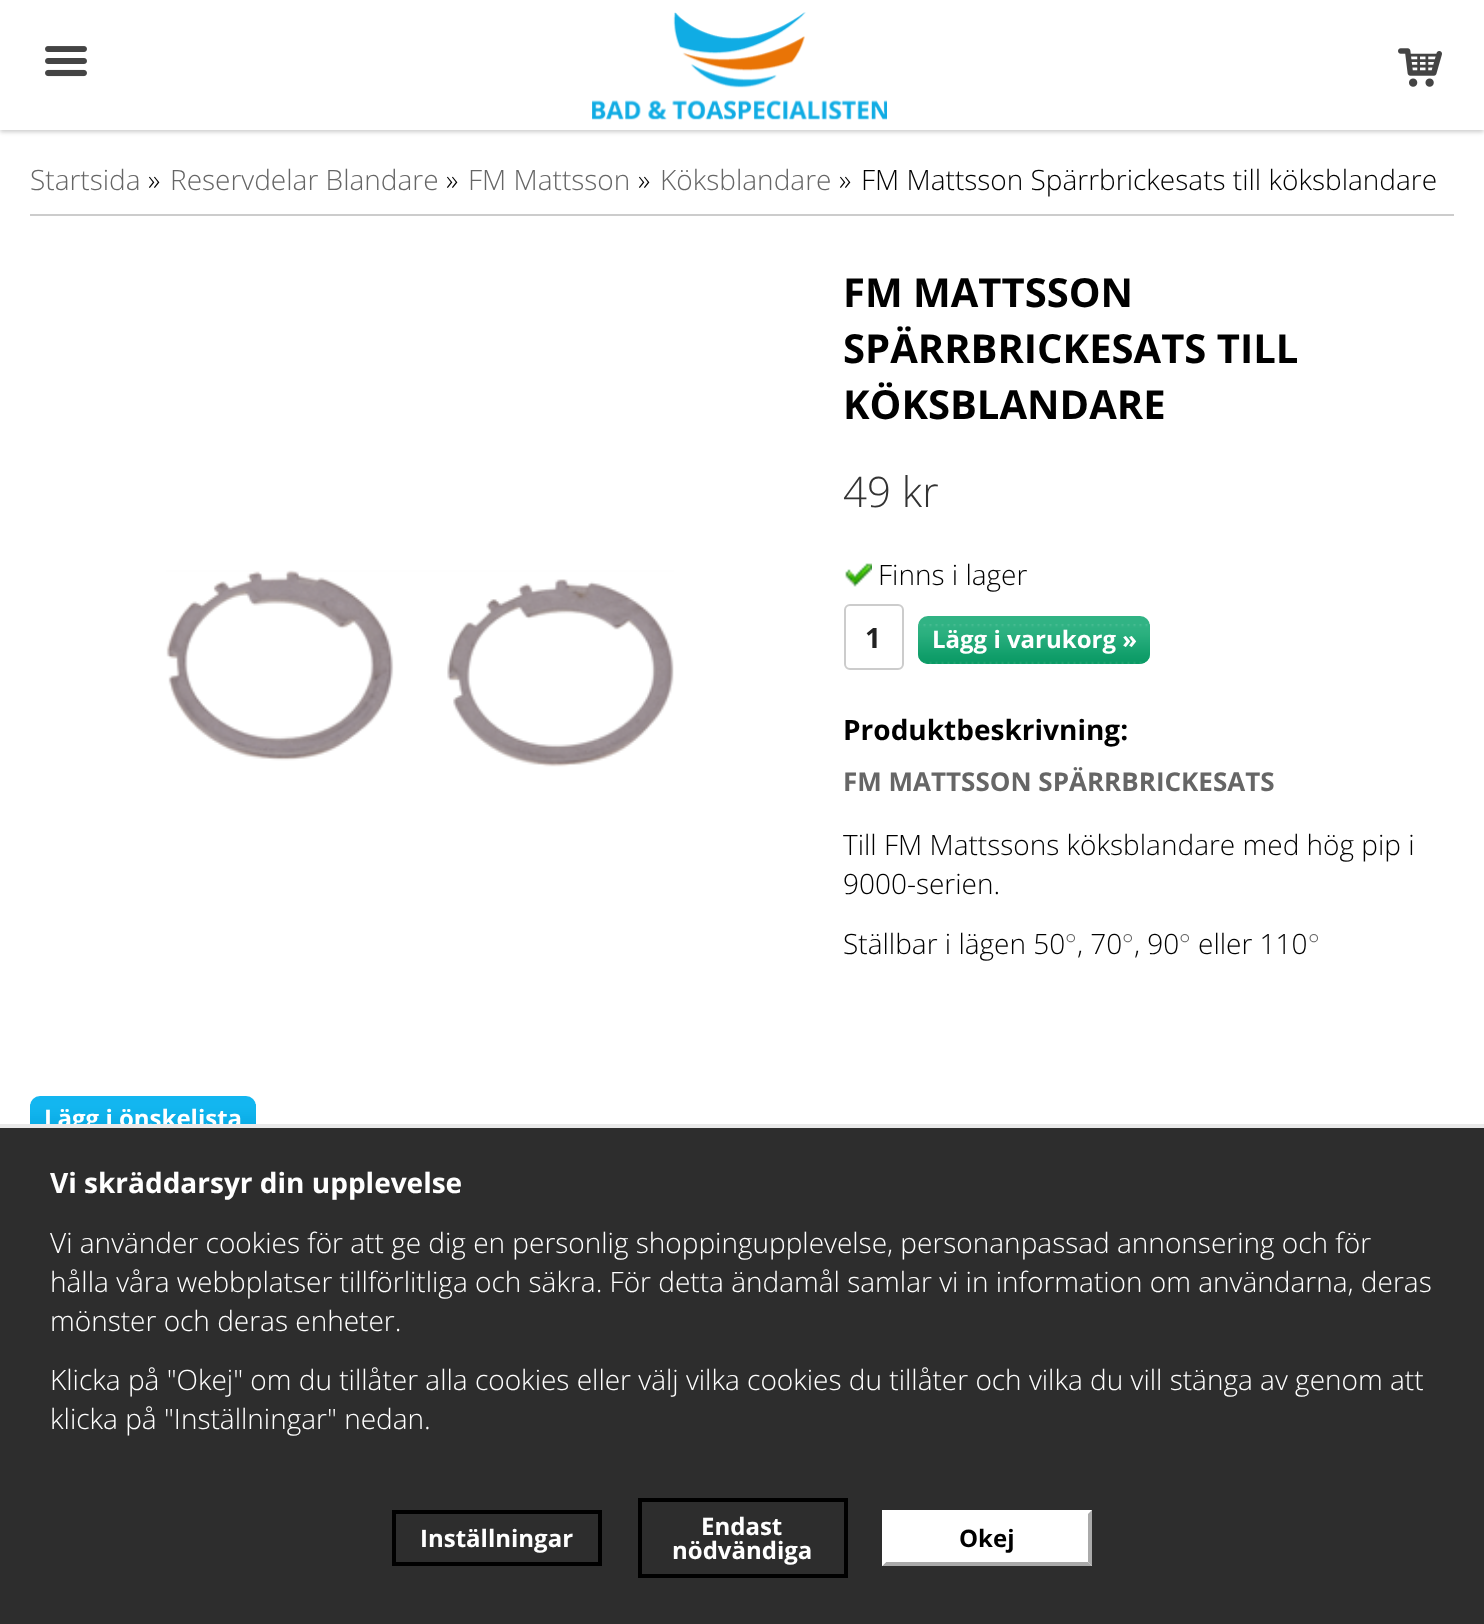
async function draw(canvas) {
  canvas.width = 1484
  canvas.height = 1624
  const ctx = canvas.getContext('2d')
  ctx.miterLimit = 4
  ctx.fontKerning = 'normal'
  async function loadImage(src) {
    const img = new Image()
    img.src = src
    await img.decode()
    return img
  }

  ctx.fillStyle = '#fff'
  ctx.fillRect(0, 0, 1484, 1624)
  ctx.fillStyle = '#00000033'
  ctx.filter = 'blur(2px)'
  ctx.beginPath()
  ctx.rect(0, 2, 1484, 130)
  ctx.fill()
  ctx.filter = 'none'
  ctx.fillStyle = '#fff'
  ctx.fillRect(0, 0, 1484, 130)
  ctx.drawImage(await loadImage('image0.png'), 45, 46, 42, 31)
  ctx.drawImage(await loadImage('image1.png'), 592, 12, 295, 108)
  ctx.drawImage(await loadImage('image2.png'), 1398, 48, 44, 39)
  ctx.fillStyle = '#ccc'
  ctx.fillRect(30, 214, 1424, 2)
  ctx.font = '300 28px Open Sans'
  ctx.fillStyle = '#666'
  ctx.fillText('Startsida', 30, 190)
  ctx.fillStyle = '#000'
  ctx.fillText('»', 148, 190)
  ctx.fillStyle = '#666'
  ctx.fillText('Reservdelar Blandare', 170, 190)
  ctx.fillStyle = '#000'
  ctx.fillText('»', 446, 190)
  ctx.fillStyle = '#666'
  ctx.fillText('FM Mattsson', 468, 190)
  ctx.fillStyle = '#000'
  ctx.fillText('»', 638, 190)
  ctx.fillStyle = '#666'
  ctx.fillText('Köksblandare', 660, 190)
  ctx.fillStyle = '#000'
  ctx.fillText('»', 839, 190)
  ctx.fillText('FM Mattsson Spärrbrickesats till köksblandare', 861, 190)
  ctx.font = 'bold 40px Open Sans'
  ctx.fillText('FM MATTSSON', 843, 307)
  ctx.fillText('SPÄRRBRICKESATS TILL', 843, 363)
  ctx.fillText('KÖKSBLANDARE', 843, 419)
  ctx.font = '300 42px Open Sans'
  ctx.fillStyle = '#333'
  ctx.fillText('49 kr', 843, 507)
  ctx.drawImage(await loadImage('image3.png'), 845, 563, 27, 24)
  ctx.font = '300 28px Open Sans'
  ctx.fillStyle = '#000'
  ctx.fillText('Finns i lager', 878, 585)
  ctx.beginPath()
  ctx.roundRect(845, 605, 58, 64, 5)
  ctx.strokeStyle = '#ccc'
  ctx.lineWidth = 2
  ctx.stroke()
  ctx.font = 'bold 28px Open Sans'
  ctx.fillStyle = '#222'
  ctx.fillText('1', 865, 648)
  ctx.fillStyle = '#31b384'
  ctx.beginPath()
  ctx.roundRect(918, 616, 232, 48, 10)
  ctx.fill()
  ctx.drawImage(await loadImage('image4.png'), 918, 624, 232, 40)
  ctx.font = 'bold 24px Open Sans'
  ctx.fillStyle = '#fff'
  ctx.fillText('Lägg i varukorg »', 932, 648)
  ctx.font = 'bold 28px Open Sans'
  ctx.fillStyle = '#000'
  ctx.fillText('Produktbeskrivning:', 843, 740)
  ctx.font = 'bold 26px Open Sans'
  ctx.fillStyle = '#666'
  ctx.fillText('FM MATTSSON SPÄRRBRICKESATS', 843, 791)
  ctx.font = '300 28px Open Sans'
  ctx.fillStyle = '#000'
  ctx.fillText('Till FM Mattssons köksblandare med hög pip i', 843, 855)
  ctx.fillText('9000-serien.', 843, 894)
  ctx.fillText('Ställbar i lägen 50', 843, 954)
  ctx.font = '300 28px Lato'
  ctx.fillStyle = '#666'
  ctx.fillText('°', 1065, 954)
  ctx.font = '300 28px Open Sans'
  ctx.fillStyle = '#000'
  ctx.fillText(', 70', 1077, 954)
  ctx.font = '300 28px Lato'
  ctx.fillStyle = '#666'
  ctx.fillText('°', 1122, 954)
  ctx.font = '300 28px Open Sans'
  ctx.fillStyle = '#000'
  ctx.fillText(', 90', 1134, 954)
  ctx.font = '300 28px Lato'
  ctx.fillStyle = '#666'
  ctx.fillText('°', 1179, 954)
  ctx.font = '300 28px Open Sans'
  ctx.fillStyle = '#000'
  ctx.fillText('eller 110', 1198, 954)
  ctx.font = '300 28px Lato'
  ctx.fillStyle = '#666'
  ctx.fillText('°', 1308, 954)
  ctx.drawImage(await loadImage('image5.png'), 166, 570, 508, 197)
  ctx.fillStyle = '#13b6f0'
  ctx.beginPath()
  ctx.roundRect(30, 1096, 226, 48, 10)
  ctx.fill()
  ctx.drawImage(await loadImage('image6.png'), 30, 1104, 226, 20)
  ctx.font = 'bold 24px Open Sans'
  ctx.fillStyle = '#fff'
  ctx.fillText('Lägg i önskelista', 44, 1127)
  ctx.fillStyle = '#2d2d2d'
  ctx.fillRect(0, 1128, 1484, 496)
  ctx.fillStyle = '#e9e9e9'
  ctx.fillRect(0, 1124, 1484, 4)
  ctx.font = 'bold 28px Open Sans'
  ctx.fillStyle = '#fff'
  ctx.fillText('Vi skräddarsyr din upplevelse', 50, 1193)
  ctx.font = '300 28px Open Sans'
  ctx.fillText('Vi använder cookies för att ge dig en personlig shoppingupplevelse, personanpassad annonsering och för', 50, 1253)
  ctx.fillText('hålla våra webbplatser tillförlitliga och säkra. För detta ändamål samlar vi in information om användarna, deras', 50, 1292)
  ctx.fillText('mönster och deras enheter.', 50, 1331)
  ctx.fillText('Klicka på "Okej" om du tillåter alla cookies eller välj vilka cookies du tillåter och vilka du vill stänga av genom att', 50, 1390)
  ctx.fillText('klicka på "Inställningar" nedan.', 50, 1429)
  ctx.strokeStyle = '#000'
  ctx.lineWidth = 4
  ctx.strokeRect(394, 1512, 206, 52)
  ctx.font = 'bold 24px Open Sans'
  ctx.fillText('Inställningar', 420, 1547)
  ctx.strokeRect(640, 1500, 206, 76)
  ctx.fillText('Endast', 701, 1535)
  ctx.fillText('nödvändiga', 672, 1559)
  ctx.fillRect(882, 1510, 210, 56)
  ctx.fillStyle = '#aaa'
  ctx.beginPath()
  ctx.moveTo(1092, 1510)
  ctx.lineTo(1092, 1566)
  ctx.lineTo(1088, 1562)
  ctx.lineTo(1088, 1514)
  ctx.closePath()
  ctx.fill()
  ctx.beginPath()
  ctx.moveTo(1092, 1566)
  ctx.lineTo(882, 1566)
  ctx.lineTo(886, 1562)
  ctx.lineTo(1088, 1562)
  ctx.closePath()
  ctx.fill()
  ctx.fillStyle = '#fff'
  ctx.beginPath()
  ctx.moveTo(882, 1566)
  ctx.lineTo(882, 1510)
  ctx.lineTo(886, 1514)
  ctx.lineTo(886, 1562)
  ctx.closePath()
  ctx.fill()
  ctx.fillStyle = '#000'
  ctx.fillText('Okej', 959, 1547)
}

draw(document.querySelector('canvas'))
